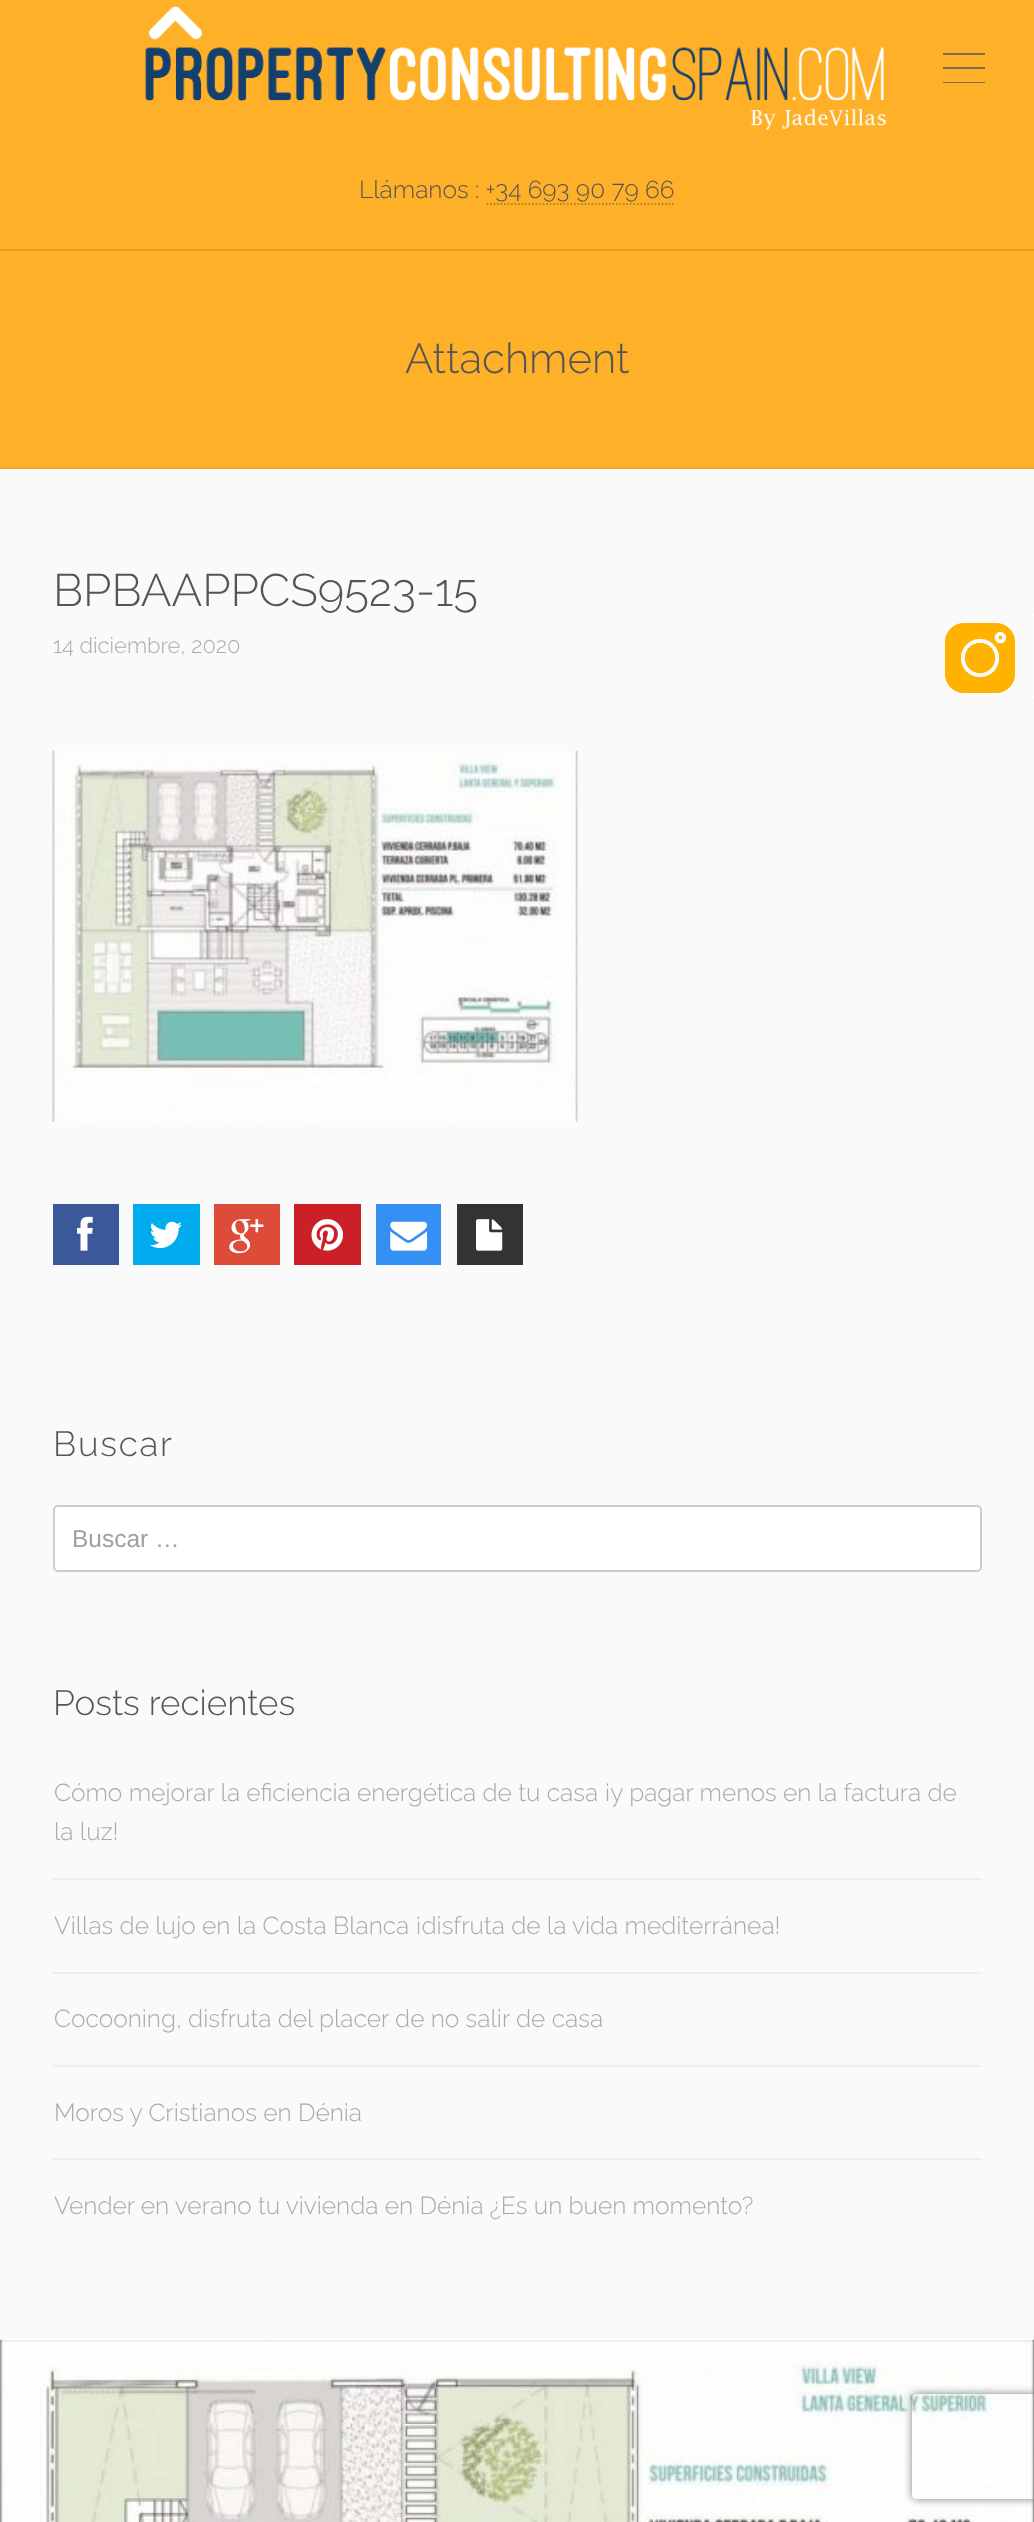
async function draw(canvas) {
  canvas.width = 1034
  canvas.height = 2522
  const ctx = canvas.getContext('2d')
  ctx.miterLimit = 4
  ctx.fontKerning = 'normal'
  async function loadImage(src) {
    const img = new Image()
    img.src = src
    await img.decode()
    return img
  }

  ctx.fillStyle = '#fafafa'
  ctx.fillRect(0, 0, 1034, 2522)
  ctx.fillStyle = '#feb029'
  ctx.fillRect(0, 0, 1034, 249)
  ctx.drawImage(await loadImage('image0.png'), 145, 6, 741, 124)
  ctx.fillStyle = '#7f6c4a'
  ctx.beginPath()
  ctx.moveTo(943, 53)
  ctx.lineTo(985, 53)
  ctx.lineTo(985, 55)
  ctx.lineTo(943, 55)
  ctx.closePath()
  ctx.moveTo(943, 67)
  ctx.lineTo(985, 67)
  ctx.lineTo(985, 69)
  ctx.lineTo(943, 69)
  ctx.closePath()
  ctx.moveTo(943, 82)
  ctx.lineTo(985, 82)
  ctx.lineTo(985, 83)
  ctx.lineTo(943, 83)
  ctx.closePath()
  ctx.fill()
  ctx.font = '300 24.5px Raleway'
  ctx.fillStyle = '#555'
  ctx.fillText('Llámanos : +34 693 90 79 66', 359, 198)
  ctx.beginPath()
  ctx.moveTo(486.5, 204)
  ctx.lineTo(675.5, 204)
  ctx.strokeStyle = '#bf841f'
  ctx.lineWidth = 1.8
  ctx.setLineDash([1.75, 1.75])
  ctx.stroke()
  ctx.fillStyle = '#e59e25'
  ctx.fillRect(0, 249, 1034, 2)
  ctx.fillStyle = '#feb029'
  ctx.fillRect(0, 251, 1034, 216)
  ctx.font = '300 42px Raleway'
  ctx.fillStyle = '#555'
  ctx.fillText('Attachment', 405, 373)
  ctx.fillStyle = '#f1a727'
  ctx.fillRect(0, 467, 1034, 2)
  ctx.font = '300 45.5px Raleway'
  ctx.fillStyle = '#555'
  ctx.fillText('BPBAAPPCS9523-15', 53, 606)
  ctx.font = '300 22px Raleway'
  ctx.fillStyle = '#aaa'
  ctx.fillText('14 diciembre, 2020', 53, 653)
  ctx.drawImage(await loadImage('image1.png'), 52, 750, 526, 372)
  ctx.fillStyle = '#3b5998'
  ctx.fillRect(53, 1204, 66, 61)
  ctx.drawImage(await loadImage('image2.png'), 77, 1216, 16, 35)
  ctx.fillStyle = '#00aced'
  ctx.fillRect(133, 1204, 67, 61)
  ctx.drawImage(await loadImage('image3.png'), 150, 1221, 32, 27)
  ctx.fillStyle = '#dd4b39'
  ctx.fillRect(214, 1204, 66, 61)
  ctx.drawImage(await loadImage('image4.png'), 229, 1219, 35, 35)
  ctx.fillStyle = '#cb2027'
  ctx.fillRect(294, 1204, 67, 61)
  ctx.drawImage(await loadImage('image5.png'), 311, 1219, 32, 32)
  ctx.fillStyle = '#3490f3'
  ctx.fillRect(376, 1204, 65, 61)
  ctx.drawImage(await loadImage('image6.png'), 390, 1221, 38, 30)
  ctx.fillStyle = '#333'
  ctx.fillRect(457, 1204, 66, 61)
  ctx.drawImage(await loadImage('image7.png'), 476, 1219, 27, 32)
  ctx.letterSpacing = '1.75px'
  ctx.font = '300 35px Raleway'
  ctx.fillStyle = '#555'
  ctx.fillText('Buscar', 53, 1456)
  ctx.fillStyle = '#fff'
  ctx.beginPath()
  ctx.roundRect(54, 1506, 927, 65, 4)
  ctx.fill()
  ctx.strokeStyle = '#ccc'
  ctx.lineWidth = 2
  ctx.setLineDash([])
  ctx.stroke()
  ctx.letterSpacing = '0px'
  ctx.font = '24.5px Liberation Sans'
  ctx.fillStyle = '#a0a0a0'
  ctx.fillText('Buscar …', 72, 1547)
  ctx.font = '300 35px Raleway'
  ctx.fillStyle = '#555'
  ctx.fillText('Posts recientes', 53, 1715)
  ctx.fillStyle = '#eee'
  ctx.fillRect(53, 1878, 929, 2)
  ctx.font = '300 24.5px Raleway'
  ctx.fillStyle = '#aaa'
  ctx.fillText('Cómo mejorar la eficiencia energética de tu casa ¡y pagar menos en la factura de', 54, 1801)
  ctx.fillText('la luz!', 54, 1840)
  ctx.fillStyle = '#eee'
  ctx.fillRect(53, 1972, 929, 2)
  ctx.fillStyle = '#aaa'
  ctx.fillText('Villas de lujo en la Costa Blanca ¡disfruta de la vida mediterránea!', 54, 1934)
  ctx.fillStyle = '#eee'
  ctx.fillRect(53, 2065, 929, 2)
  ctx.fillStyle = '#aaa'
  ctx.fillText('Cocooning, disfruta del placer de no salir de casa', 54, 2027)
  ctx.fillStyle = '#eee'
  ctx.fillRect(53, 2158, 929, 2)
  ctx.fillStyle = '#aaa'
  ctx.fillText('Moros y Cristianos en Dénia', 54, 2121)
  ctx.fillText('Vender en verano tu vivienda en Dénia ¿Es un buen momento?', 54, 2214)
  ctx.drawImage(await loadImage('image8.png'), 0, 2339, 1034, 183)
  ctx.drawImage(await loadImage('image9.png'), 945, 623, 70, 70)
  ctx.fillStyle = '#fff'
  ctx.fillRect(1033, 614, 1, 84)
  ctx.fillStyle = '#0000000d'
  ctx.fillRect(0, 2340, 1034, 2)
  ctx.save()
  ctx.beginPath()
  ctx.moveTo(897, 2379)
  ctx.lineTo(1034, 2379)
  ctx.lineTo(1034, 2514)
  ctx.lineTo(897, 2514)
  ctx.closePath()
  ctx.moveTo(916, 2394)
  ctx.lineTo(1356, 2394)
  ctx.bezierCurveTo(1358, 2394, 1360, 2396, 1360, 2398)
  ctx.lineTo(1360, 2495)
  ctx.bezierCurveTo(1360, 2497, 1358, 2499, 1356, 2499)
  ctx.lineTo(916, 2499)
  ctx.bezierCurveTo(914, 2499, 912, 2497, 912, 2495)
  ctx.lineTo(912, 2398)
  ctx.bezierCurveTo(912, 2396, 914, 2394, 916, 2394)
  ctx.closePath()
  ctx.clip('evenodd')
  ctx.fillStyle = '#808080'
  ctx.filter = 'blur(4.5px)'
  ctx.beginPath()
  ctx.roundRect(912, 2394, 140, 105, 4)
  ctx.fill()
  ctx.filter = 'none'
  ctx.restore()
}

draw(document.querySelector('canvas'))
